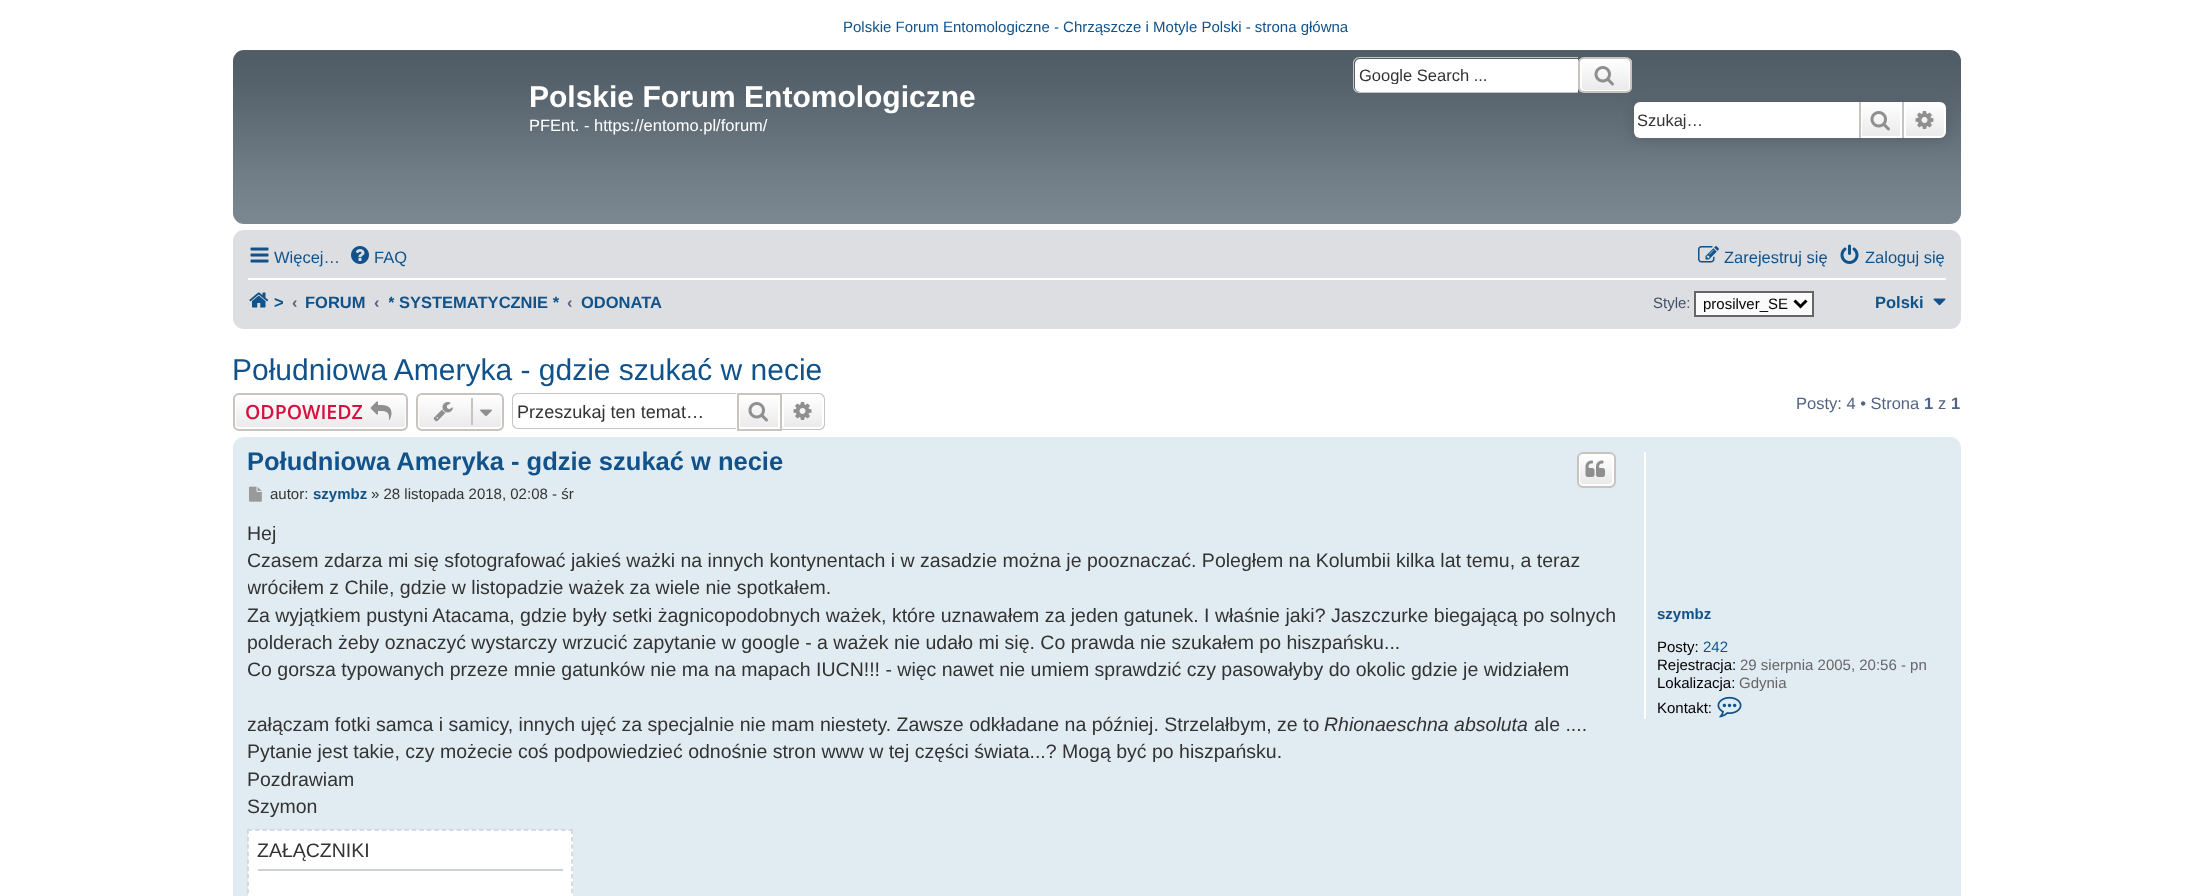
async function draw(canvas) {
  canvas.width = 2191
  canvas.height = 896
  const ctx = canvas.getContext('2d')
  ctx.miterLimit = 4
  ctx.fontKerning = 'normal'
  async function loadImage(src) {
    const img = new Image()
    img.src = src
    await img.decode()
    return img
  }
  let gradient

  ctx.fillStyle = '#fff'
  ctx.fillRect(0, 0, 2191, 896)
  ctx.font = '15px Liberation Sans'
  ctx.fillStyle = '#105289'
  ctx.fillText('Polskie Forum Entomologiczne - Chrząszcze i Motyle Polski - strona główna', 843, 32)
  gradient = ctx.createLinearGradient(1097, 49, 1097, 224)
  gradient.addColorStop(0, '#6e777f')
  gradient.addColorStop(0.01, '#505c65')
  gradient.addColorStop(0.2, '#56626b')
  gradient.addColorStop(0.75, '#737f88')
  gradient.addColorStop(1, '#7c8891')
  ctx.fillStyle = gradient
  ctx.beginPath()
  ctx.roundRect(233, 50, 1728, 174, 11)
  ctx.fill()
  ctx.fillStyle = '#fff'
  ctx.beginPath()
  ctx.roundRect(1355, 59, 223, 33, [5, 0, 0, 5])
  ctx.fill()
  ctx.fillStyle = '#c7c3bf'
  ctx.beginPath()
  ctx.moveTo(1359, 57)
  ctx.lineTo(1578, 57)
  ctx.lineTo(1578, 93)
  ctx.lineTo(1359, 93)
  ctx.bezierCurveTo(1356, 93, 1353, 90, 1353, 87)
  ctx.lineTo(1353, 63)
  ctx.bezierCurveTo(1353, 60, 1356, 57, 1359, 57)
  ctx.closePath()
  ctx.moveTo(1359, 58)
  ctx.lineTo(1578, 58)
  ctx.lineTo(1578, 92)
  ctx.lineTo(1359, 92)
  ctx.bezierCurveTo(1357, 92, 1354, 89, 1354, 87)
  ctx.lineTo(1354, 63)
  ctx.bezierCurveTo(1354, 61, 1357, 58, 1359, 58)
  ctx.closePath()
  ctx.fill('evenodd')
  ctx.save()
  ctx.beginPath()
  ctx.rect(1359, 66, 209, 18)
  ctx.clip()
  ctx.font = '16.5px Liberation Sans'
  ctx.fillStyle = '#333'
  ctx.fillText('Google Search ...', 1359, 81)
  ctx.restore()
  ctx.save()
  ctx.beginPath()
  ctx.roundRect(1578, 57, 54, 36, 6)
  ctx.clip()
  gradient = ctx.createLinearGradient(1605, 59, 1605, 92)
  gradient.addColorStop(0, '#fff')
  gradient.addColorStop(1, '#e9e9e9')
  ctx.fillStyle = gradient
  ctx.fillRect(1578, 59, 54, 33)
  ctx.restore()
  ctx.beginPath()
  ctx.roundRect(1581, 60, 49, 31, 4)
  ctx.strokeStyle = '#fff'
  ctx.lineWidth = 2
  ctx.stroke()
  ctx.beginPath()
  ctx.roundRect(1579, 58, 52, 34, 5)
  ctx.strokeStyle = '#c7c3bf'
  ctx.stroke()
  ctx.drawImage(await loadImage('image0.png'), 1594, 66, 20, 20)
  ctx.font = 'bold 30px Liberation Sans'
  ctx.fillStyle = '#fff'
  ctx.fillText('Polskie Forum Entomologiczne', 529, 107)
  ctx.font = '16.5px Liberation Sans'
  ctx.fillText('PFEnt. - https://entomo.pl/forum/', 529, 131)
  ctx.fillStyle = '#505c65'
  ctx.filter = 'blur(7.5px)'
  ctx.beginPath()
  ctx.roundRect(1634, 102, 312, 36, 6)
  ctx.fill()
  ctx.filter = 'none'
  ctx.fillStyle = '#fff'
  ctx.beginPath()
  ctx.roundRect(1634, 102, 225, 36, [6, 0, 0, 6])
  ctx.fill()
  ctx.save()
  ctx.beginPath()
  ctx.rect(1638, 111, 210, 18)
  ctx.clip()
  ctx.fillStyle = '#333'
  ctx.fillText('Szukaj…', 1637, 126)
  ctx.restore()
  gradient = ctx.createLinearGradient(1881, 102, 1881, 138)
  gradient.addColorStop(0, '#fff')
  gradient.addColorStop(1, '#e9e9e9')
  ctx.fillStyle = gradient
  ctx.fillRect(1862, 104, 38, 32)
  ctx.strokeStyle = '#fff'
  ctx.strokeRect(1861, 103, 40, 34)
  ctx.fillStyle = '#c7c3bf'
  ctx.fillRect(1902, 102, 2, 36)
  ctx.fillRect(1859, 102, 2, 36)
  ctx.drawImage(await loadImage('image1.png'), 1870, 111, 20, 20)
  gradient = ctx.createLinearGradient(1925, 102, 1925, 138)
  gradient.addColorStop(0, '#fff')
  gradient.addColorStop(1, '#e9e9e9')
  ctx.fillStyle = gradient
  ctx.beginPath()
  ctx.roundRect(1905, 103, 40, 34, [0, 5, 5, 0])
  ctx.fill()
  ctx.stroke()
  ctx.drawImage(await loadImage('image2.png'), 1915, 111, 19, 18)
  ctx.fillStyle = '#dcdee2'
  ctx.beginPath()
  ctx.roundRect(233, 230, 1728, 99, 11)
  ctx.fill()
  ctx.drawImage(await loadImage('image3.png'), 250, 247, 19, 16)
  ctx.fillStyle = '#105289'
  ctx.fillText('Więcej…', 274, 263)
  ctx.drawImage(await loadImage('image4.png'), 351, 246, 18, 18)
  ctx.fillText('FAQ', 374, 263)
  ctx.drawImage(await loadImage('image5.png'), 1698, 246, 21, 17)
  ctx.fillText('Zarejestruj się', 1724, 263)
  ctx.drawImage(await loadImage('image6.png'), 1840, 244, 19, 20)
  ctx.fillText('Zaloguj się', 1865, 263)
  ctx.fillStyle = '#fff'
  ctx.fillRect(248, 278, 1698, 2)
  ctx.drawImage(await loadImage('image7.png'), 249, 292, 20, 16)
  ctx.font = 'bold 16.5px Liberation Sans'
  ctx.fillStyle = '#105289'
  ctx.fillText('>', 274, 308)
  ctx.fillStyle = '#536482'
  ctx.fillText('‹', 292, 308)
  ctx.fillStyle = '#105289'
  ctx.fillText('FORUM', 305, 308)
  ctx.fillStyle = '#536482'
  ctx.fillText('‹', 374, 308)
  ctx.save()
  ctx.beginPath()
  ctx.rect(389, 284, 171, 36)
  ctx.clip()
  ctx.fillStyle = '#105289'
  ctx.fillText('* SYSTEMATYCZNIE *', 388, 308)
  ctx.restore()
  ctx.fillText('‹', 567, 308)
  ctx.fillStyle = '#105289'
  ctx.fillText('ODONATA', 581, 308)
  ctx.font = '15px Liberation Sans'
  ctx.fillStyle = '#425067'
  ctx.fillText('Style:', 1653, 308)
  ctx.fillStyle = '#fafafa'
  ctx.beginPath()
  ctx.rect(1695, 292, 118, 24)
  ctx.fill()
  ctx.strokeStyle = '#666'
  ctx.stroke()
  ctx.beginPath()
  ctx.moveTo(1794.5, 300.5)
  ctx.lineTo(1800.5, 306.5)
  ctx.lineTo(1806.5, 300.5)
  ctx.strokeStyle = '#000'
  ctx.lineWidth = 3
  ctx.stroke()
  ctx.fillStyle = '#000'
  ctx.fillText('prosilver_SE', 1703, 309)
  ctx.font = 'bold 16.5px Liberation Sans'
  ctx.fillStyle = '#105289'
  ctx.fillText('Polski', 1875, 308)
  ctx.drawImage(await loadImage('image8.png'), 1933, 298, 13, 8)
  ctx.font = '30px Liberation Sans'
  ctx.fillText('Południowa Ameryka - gdzie szukać w necie', 232, 380)
  ctx.save()
  ctx.beginPath()
  ctx.roundRect(233, 393, 175, 38, 6)
  ctx.clip()
  gradient = ctx.createLinearGradient(320, 395, 320, 429)
  gradient.addColorStop(0, '#fff')
  gradient.addColorStop(1, '#e9e9e9')
  ctx.fillStyle = gradient
  ctx.fillRect(233, 395, 175, 34)
  ctx.restore()
  ctx.beginPath()
  ctx.roundRect(235, 396, 171, 32, 4)
  ctx.strokeStyle = '#fff'
  ctx.lineWidth = 2
  ctx.stroke()
  ctx.beginPath()
  ctx.roundRect(234, 394, 173, 36, 5)
  ctx.strokeStyle = '#c7c3bf'
  ctx.stroke()
  ctx.font = '600 19.5px Open Sans'
  ctx.fillStyle = '#d31141'
  ctx.fillText('ODPOWIEDZ', 245, 419)
  ctx.drawImage(await loadImage('image9.png'), 370, 401, 22, 19)
  ctx.save()
  ctx.beginPath()
  ctx.roundRect(416, 393, 88, 38, 6)
  ctx.clip()
  gradient = ctx.createLinearGradient(460, 395, 460, 429)
  gradient.addColorStop(0, '#fff')
  gradient.addColorStop(1, '#e9e9e9')
  ctx.fillStyle = gradient
  ctx.fillRect(416, 395, 88, 34)
  ctx.restore()
  ctx.beginPath()
  ctx.roundRect(418, 396, 84, 32, 4)
  ctx.strokeStyle = '#fff'
  ctx.stroke()
  ctx.beginPath()
  ctx.roundRect(417, 394, 86, 36, 5)
  ctx.strokeStyle = '#c7c3bf'
  ctx.stroke()
  ctx.drawImage(await loadImage('image10.png'), 433, 402, 20, 20)
  ctx.fillStyle = '#c7c3bf'
  ctx.fillRect(471, 398, 2, 27)
  ctx.drawImage(await loadImage('image11.png'), 480, 409, 12, 8)
  ctx.beginPath()
  ctx.moveTo(518, 393)
  ctx.lineTo(736, 393)
  ctx.lineTo(736, 429)
  ctx.lineTo(518, 429)
  ctx.bezierCurveTo(514, 429, 512, 426, 512, 423)
  ctx.lineTo(512, 399)
  ctx.bezierCurveTo(512, 396, 514, 393, 518, 393)
  ctx.closePath()
  ctx.moveTo(518, 394)
  ctx.lineTo(736, 394)
  ctx.lineTo(736, 428)
  ctx.lineTo(518, 428)
  ctx.bezierCurveTo(515, 428, 513, 425, 513, 423)
  ctx.lineTo(513, 399)
  ctx.bezierCurveTo(513, 397, 515, 394, 518, 394)
  ctx.closePath()
  ctx.fill('evenodd')
  ctx.font = '18.1px Liberation Sans'
  ctx.fillStyle = '#333'
  ctx.fillText('Przeszukaj ten temat…', 517, 418)
  gradient = ctx.createLinearGradient(759, 395, 759, 429)
  gradient.addColorStop(0, '#fff')
  gradient.addColorStop(1, '#e9e9e9')
  ctx.fillStyle = gradient
  ctx.fillRect(740, 399, 38, 28)
  ctx.strokeRect(738, 394, 43, 36)
  ctx.drawImage(await loadImage('image12.png'), 748, 402, 20, 20)
  gradient = ctx.createLinearGradient(803, 395, 803, 429)
  gradient.addColorStop(0, '#fff')
  gradient.addColorStop(1, '#e9e9e9')
  ctx.fillStyle = gradient
  ctx.beginPath()
  ctx.roundRect(783, 396, 40, 32, [0, 4, 4, 0])
  ctx.fill()
  ctx.strokeStyle = '#fff'
  ctx.stroke()
  ctx.fillStyle = '#c7c3bf'
  ctx.beginPath()
  ctx.moveTo(782, 393)
  ctx.lineTo(819, 393)
  ctx.bezierCurveTo(822, 393, 825, 396, 825, 399)
  ctx.lineTo(825, 424)
  ctx.bezierCurveTo(825, 428, 822, 430, 819, 430)
  ctx.lineTo(782, 430)
  ctx.closePath()
  ctx.moveTo(782, 394)
  ctx.lineTo(819, 394)
  ctx.bezierCurveTo(821, 394, 824, 397, 824, 399)
  ctx.lineTo(824, 424)
  ctx.bezierCurveTo(824, 427, 821, 429, 819, 429)
  ctx.lineTo(782, 429)
  ctx.closePath()
  ctx.fill('evenodd')
  ctx.drawImage(await loadImage('image13.png'), 793, 402, 19, 18)
  ctx.font = '16.5px Liberation Sans'
  ctx.fillStyle = '#536482'
  ctx.fillText('Posty: 4 • Strona', 1796, 409)
  ctx.font = 'bold 16.5px Liberation Sans'
  ctx.fillText('1', 1924, 409)
  ctx.font = '16.5px Liberation Sans'
  ctx.fillText('z', 1938, 409)
  ctx.font = 'bold 16.5px Liberation Sans'
  ctx.fillText('1', 1951, 409)
  ctx.fillStyle = '#e1ebf2'
  ctx.beginPath()
  ctx.roundRect(233, 437, 1728, 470, 11)
  ctx.fill()
  ctx.font = 'bold 25.5px Liberation Sans'
  ctx.fillStyle = '#105289'
  ctx.fillText('Południowa Ameryka - gdzie szukać w necie', 247, 470)
  ctx.save()
  ctx.beginPath()
  ctx.roundRect(1577, 452, 39, 36, 6)
  ctx.clip()
  gradient = ctx.createLinearGradient(1596, 453, 1596, 486)
  gradient.addColorStop(0, '#fff')
  gradient.addColorStop(1, '#e9e9e9')
  ctx.fillStyle = gradient
  ctx.fillRect(1577, 453, 39, 33)
  ctx.restore()
  ctx.beginPath()
  ctx.roundRect(1579, 454, 34, 31, 4)
  ctx.stroke()
  ctx.beginPath()
  ctx.roundRect(1578, 453, 37, 34, 5)
  ctx.strokeStyle = '#c7c3bf'
  ctx.stroke()
  ctx.drawImage(await loadImage('image14.png'), 1585, 460, 20, 17)
  ctx.drawImage(await loadImage('image15.png'), 249, 486, 13, 16)
  ctx.font = '15px Liberation Sans'
  ctx.fillStyle = '#333'
  ctx.fillText('autor:', 270, 499)
  ctx.font = 'bold 15px Liberation Sans'
  ctx.fillStyle = '#105289'
  ctx.fillText('szymbz', 313, 499)
  ctx.font = '15px Liberation Sans'
  ctx.fillStyle = '#333'
  ctx.fillText('» 28 listopada 2018, 02:08 - śr', 371, 499)
  ctx.font = '19.5px Liberation Sans'
  ctx.fillText('Hej', 247, 540)
  ctx.save()
  ctx.beginPath()
  ctx.rect(248, 521, 1372, 301)
  ctx.clip()
  ctx.fillText('Czasem zdarza mi się sfotografować jakieś ważki na innych kontynentach i w zasadzie można je pooznaczać. Poległem na Kolumbii kilka lat temu, a teraz', 247, 567)
  ctx.fillText('wróciłem z Chile, gdzie w listopadzie ważek za wiele nie spotkałem.', 247, 594)
  ctx.restore()
  ctx.fillText('Za wyjątkiem pustyni Atacama, gdzie były setki żagnicopodobnych ważek, które uznawałem za jeden gatunek. I właśnie jaki? Jaszczurke biegającą po solnych', 247, 622)
  ctx.fillText('polderach żeby oznaczyć wystarczy wrzucić zapytanie w google - a ważek nie udało mi się. Co prawda nie szukałem po hiszpańsku...', 247, 649)
  ctx.save()
  ctx.beginPath()
  ctx.rect(248, 521, 1372, 301)
  ctx.clip()
  ctx.fillText('Co gorsza typowanych przeze mnie gatunków nie ma na mapach IUCN!!! - więc nawet nie umiem sprawdzić czy pasowałyby do okolic gdzie je widziałem', 247, 676)
  ctx.fillText('załączam fotki samca i samicy, innych ujęć za specjalnie nie mam niestety. Zawsze odkładane na później. Strzelałbym, ze to', 247, 731)
  ctx.restore()
  ctx.font = 'italic 19.5px Liberation Sans'
  ctx.fillText('Rhionaeschna absoluta', 1324, 731)
  ctx.font = '19.5px Liberation Sans'
  ctx.fillText('ale ....', 1534, 731)
  ctx.fillText('Pytanie jest takie, czy możecie coś podpowiedzieć odnośnie stron www w tej części świata...? Mogą być po hiszpańsku.', 247, 758)
  ctx.fillText('Pozdrawiam', 247, 786)
  ctx.fillText('Szymon', 247, 813)
  ctx.fillStyle = '#fff'
  ctx.fillRect(248, 830, 325, 66)
  ctx.beginPath()
  ctx.moveTo(247.5, 830)
  ctx.lineTo(573, 830)
  ctx.strokeStyle = '#c9d2d8'
  ctx.lineWidth = 1.5
  ctx.setLineDash([4.5, 2.97])
  ctx.stroke()
  ctx.beginPath()
  ctx.moveTo(572, 829.5)
  ctx.lineTo(572, 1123.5)
  ctx.setLineDash([4.5, 2.92])
  ctx.stroke()
  ctx.beginPath()
  ctx.moveTo(248, 829.5)
  ctx.lineTo(248, 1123.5)
  ctx.stroke()
  ctx.fillStyle = '#333'
  ctx.fillText('ZAŁĄCZNIKI', 257, 857)
  ctx.fillStyle = '#c9d2d8'
  ctx.fillRect(258, 869, 305, 2)
  ctx.fillStyle = '#fff'
  ctx.fillRect(1644, 452, 2, 267)
  ctx.font = 'bold 15px Liberation Sans'
  ctx.fillStyle = '#105289'
  ctx.fillText('szymbz', 1657, 619)
  ctx.font = '15px Liberation Sans'
  ctx.fillStyle = '#000'
  ctx.fillText('Posty:', 1657, 652)
  ctx.fillStyle = '#105289'
  ctx.fillText('242', 1703, 652)
  ctx.fillStyle = '#000'
  ctx.fillText('Rejestracja:', 1657, 670)
  ctx.fillStyle = '#666'
  ctx.fillText('29 sierpnia 2005, 20:56 - pn', 1740, 670)
  ctx.fillStyle = '#000'
  ctx.fillText('Lokalizacja:', 1657, 688)
  ctx.fillStyle = '#666'
  ctx.fillText('Gdynia', 1739, 688)
  ctx.fillStyle = '#000'
  ctx.fillText('Kontakt:', 1657, 713)
  ctx.drawImage(await loadImage('image16.png'), 1717, 696, 25, 22)
}

draw(document.querySelector('canvas'))
